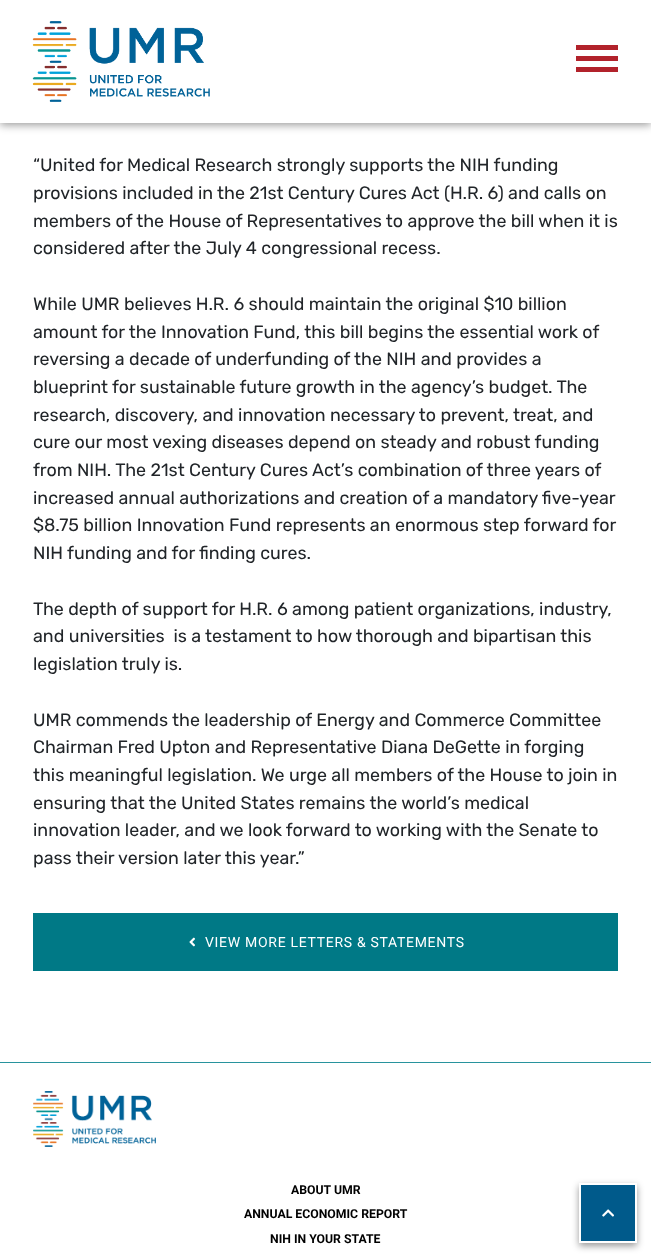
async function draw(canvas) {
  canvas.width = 651
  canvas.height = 1257
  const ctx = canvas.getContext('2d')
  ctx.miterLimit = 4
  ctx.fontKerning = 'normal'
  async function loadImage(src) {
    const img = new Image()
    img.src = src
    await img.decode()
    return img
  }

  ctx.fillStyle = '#fff'
  ctx.fillRect(0, 0, 651, 1257)
  ctx.fillStyle = '#00000066'
  ctx.filter = 'blur(4px)'
  ctx.beginPath()
  ctx.rect(0, 2, 651, 123)
  ctx.fill()
  ctx.filter = 'none'
  ctx.fillStyle = '#fff'
  ctx.fillRect(0, 0, 651, 123)
  ctx.drawImage(await loadImage('image0.png'), 32, 21, 178, 81)
  ctx.fillStyle = '#b2222b'
  ctx.fillRect(576, 45, 42, 5)
  ctx.fillRect(576, 56, 42, 5)
  ctx.fillRect(576, 67, 42, 5)
  ctx.fillStyle = '#28939d'
  ctx.fillRect(0, 1062, 651, 1)
  ctx.font = '17.85px Rubik'
  ctx.fillStyle = '#212529'
  ctx.fillText('“United for Medical Research strongly supports the NIH funding', 33, 171)
  ctx.fillText('provisions included in the 21st Century Cures Act (H.R. 6) and calls on', 33, 199)
  ctx.fillText('members of the House of Representatives to approve the bill when it is', 33, 227)
  ctx.fillText('considered after the July 4 congressional recess.', 33, 254)
  ctx.fillText('While UMR believes H.R. 6 should maintain the original $10 billion', 33, 310)
  ctx.fillText('amount for the Innovation Fund, this bill begins the essential work of', 33, 338)
  ctx.fillText('reversing a decade of underfunding of the NIH and provides a', 33, 365)
  ctx.fillText('blueprint for sustainable future growth in the agency’s budget. The', 33, 393)
  ctx.fillText('research, discovery, and innovation necessary to prevent, treat, and', 33, 421)
  ctx.fillText('cure our most vexing diseases depend on steady and robust funding', 33, 448)
  ctx.fillText('from NIH. The 21st Century Cures Act’s combination of three years of', 33, 476)
  ctx.fillText('increased annual authorizations and creation of a mandatory five-year', 33, 504)
  ctx.fillText('$8.75 billion Innovation Fund represents an enormous step forward for', 33, 531)
  ctx.fillText('NIH funding and for finding cures.', 33, 559)
  ctx.fillText('The depth of support for H.R. 6 among patient organizations, industry,', 33, 615)
  ctx.fillText('and universities  is a testament to how thorough and bipartisan this', 33, 642)
  ctx.fillText('legislation truly is.', 33, 670)
  ctx.fillText('UMR commends the leadership of Energy and Commerce Committee', 33, 726)
  ctx.fillText('Chairman Fred Upton and Representative Diana DeGette in forging', 33, 753)
  ctx.fillText('this meaningful legislation. We urge all members of the House to join in', 33, 781)
  ctx.fillText('ensuring that the United States remains the world’s medical', 33, 809)
  ctx.fillText('innovation leader, and we look forward to working with the Senate to', 33, 836)
  ctx.fillText('pass their version later this year.”', 33, 864)
  ctx.fillStyle = '#007986'
  ctx.fillRect(33, 913, 585, 58)
  ctx.drawImage(await loadImage('image1.png'), 189, 937, 6, 10)
  ctx.letterSpacing = '0.7px'
  ctx.font = '14px Roboto'
  ctx.fillStyle = '#fff'
  ctx.fillText('VIEW MORE LETTERS & STATEMENTS', 205, 947)
  ctx.drawImage(await loadImage('image2.png'), 33, 1091, 123, 56)
  ctx.letterSpacing = '0px'
  ctx.font = 'bold 12.25px Roboto'
  ctx.fillStyle = '#000'
  ctx.fillText('ABOUT UMR', 291, 1194)
  ctx.fillText('ANNUAL ECONOMIC REPORT', 244, 1218)
  ctx.fillText('NIH IN YOUR STATE', 270, 1243)
  ctx.fillStyle = '#00000066'
  ctx.filter = 'blur(3.5px)'
  ctx.beginPath()
  ctx.rect(579, 1186, 58, 60)
  ctx.fill()
  ctx.filter = 'none'
  ctx.fillStyle = '#005a8b'
  ctx.beginPath()
  ctx.rect(580, 1184, 56, 58)
  ctx.fill()
  ctx.strokeStyle = '#fff'
  ctx.lineWidth = 2
  ctx.stroke()
  ctx.drawImage(await loadImage('image3.png'), 602, 1209, 12, 8)
}

draw(document.querySelector('canvas'))
